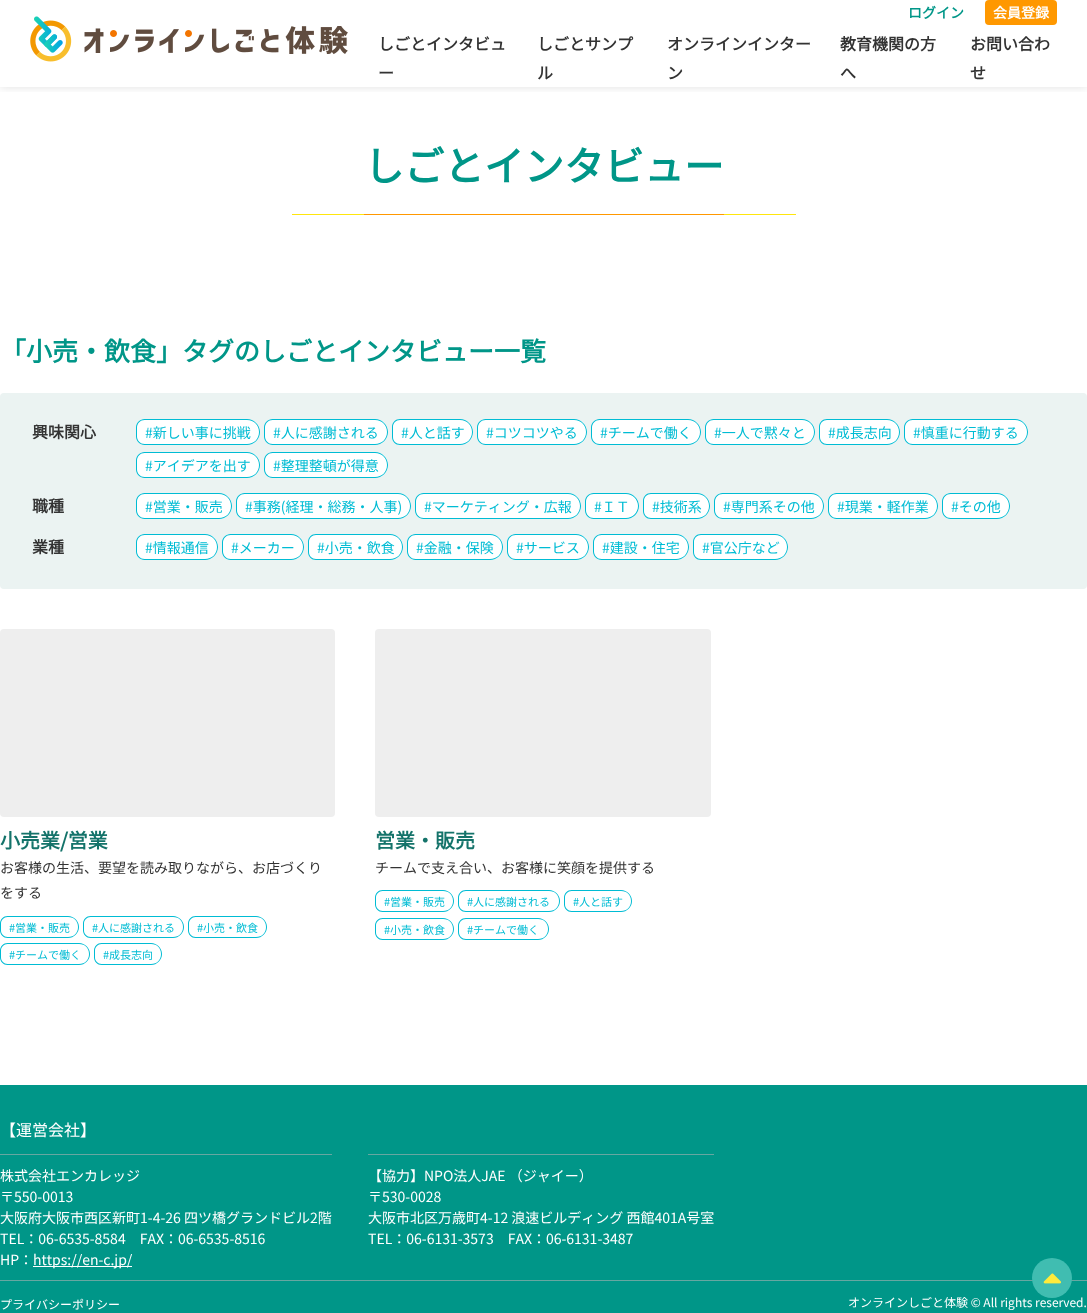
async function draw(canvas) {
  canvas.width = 1087
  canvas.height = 1313
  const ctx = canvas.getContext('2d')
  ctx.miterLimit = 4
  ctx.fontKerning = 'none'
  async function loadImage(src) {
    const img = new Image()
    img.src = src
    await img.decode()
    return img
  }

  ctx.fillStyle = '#fff'
  ctx.fillRect(0, 0, 1087, 1313)
  ctx.save()
  ctx.beginPath()
  ctx.rect(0, 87, 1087, 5)
  ctx.clip()
  ctx.fillStyle = '#0000001f'
  ctx.filter = 'blur(5px)'
  ctx.beginPath()
  ctx.rect(0, 0, 1087, 87)
  ctx.fill()
  ctx.filter = 'none'
  ctx.restore()
  ctx.drawImage(await loadImage('image0.png'), 30, 16, 318, 46)
  ctx.font = 'bold 14px Noto Sans JP'
  ctx.fillStyle = '#009688'
  ctx.fillText('ログイン', 908, 18)
  ctx.fillStyle = '#ff9800'
  ctx.beginPath()
  ctx.roundRect(985, 0, 72, 25, 4)
  ctx.fill()
  ctx.fillStyle = '#fff'
  ctx.fillText('会員登録', 993, 18)
  ctx.font = 'bold 16px Noto Sans JP'
  ctx.fillStyle = '#333'
  ctx.fillText('しごとインタビュ', 378, 50)
  ctx.fillText('ー', 378, 79)
  ctx.fillText('しごとサンプ', 537, 50)
  ctx.fillText('ル', 537, 79)
  ctx.fillText('オンラインインター', 667, 50)
  ctx.fillText('ン', 667, 79)
  ctx.fillText('教育機関の方', 840, 50)
  ctx.fillText('へ', 840, 79)
  ctx.fillText('お問い合わ', 970, 50)
  ctx.fillText('せ', 970, 79)
  ctx.font = 'bold 40px Noto Sans JP'
  ctx.fillStyle = '#009688'
  ctx.fillText('しごとインタビュー', 364, 181)
  ctx.fillStyle = '#ffe60d'
  ctx.fillRect(292, 214, 504, 1)
  ctx.fillStyle = '#ff9800'
  ctx.fillRect(364, 214, 360, 1)
  ctx.font = 'bold 26px Noto Sans JP'
  ctx.fillStyle = '#009688'
  ctx.fillText('「小売・飲食」タグのしごとインタビュー一覧', 0, 361)
  ctx.fillStyle = '#ebf3f2'
  ctx.beginPath()
  ctx.roundRect(0, 393, 1087, 196, 4)
  ctx.fill()
  ctx.font = 'bold 16px Noto Sans JP'
  ctx.fillStyle = '#333'
  ctx.fillText('興味関心', 32, 438)
  ctx.fillStyle = '#fff'
  ctx.beginPath()
  ctx.roundRect(136, 419, 17, 26, [8.5, 0, 0, 8.5])
  ctx.fill()
  ctx.fillStyle = '#00bcd4'
  ctx.beginPath()
  ctx.moveTo(144.5, 419)
  ctx.lineTo(153, 419)
  ctx.lineTo(153, 445)
  ctx.lineTo(144.5, 445)
  ctx.bezierCurveTo(140, 445, 136, 441, 136, 436.5)
  ctx.lineTo(136, 427.5)
  ctx.bezierCurveTo(136, 423, 140, 419, 144.5, 419)
  ctx.closePath()
  ctx.moveTo(144.5, 420)
  ctx.lineTo(153, 420)
  ctx.lineTo(153, 444)
  ctx.lineTo(144.5, 444)
  ctx.bezierCurveTo(140.5, 444, 137, 440.5, 137, 436.5)
  ctx.lineTo(137, 427.5)
  ctx.bezierCurveTo(137, 423.5, 140.5, 420, 144.5, 420)
  ctx.closePath()
  ctx.fill('evenodd')
  ctx.fillStyle = '#fff'
  ctx.beginPath()
  ctx.roundRect(153, 419, 107, 26, [0, 13, 13, 0])
  ctx.fill()
  ctx.fillStyle = '#00bcd4'
  ctx.beginPath()
  ctx.moveTo(153, 419)
  ctx.lineTo(247, 419)
  ctx.bezierCurveTo(254, 419, 260, 425, 260, 432)
  ctx.bezierCurveTo(260, 439, 254, 445, 247, 445)
  ctx.lineTo(153, 445)
  ctx.closePath()
  ctx.moveTo(153, 420)
  ctx.lineTo(247, 420)
  ctx.bezierCurveTo(254, 420, 259, 425, 259, 432)
  ctx.bezierCurveTo(259, 439, 254, 444, 247, 444)
  ctx.lineTo(153, 444)
  ctx.closePath()
  ctx.fill('evenodd')
  ctx.font = '100 14px Noto Sans JP'
  ctx.fillText('#新しい事に挑戦', 145, 438)
  ctx.fillStyle = '#fff'
  ctx.beginPath()
  ctx.roundRect(264, 419, 17, 26, [8.5, 0, 0, 8.5])
  ctx.fill()
  ctx.fillStyle = '#00bcd4'
  ctx.beginPath()
  ctx.moveTo(272.5, 419)
  ctx.lineTo(281, 419)
  ctx.lineTo(281, 445)
  ctx.lineTo(272.5, 445)
  ctx.bezierCurveTo(268, 445, 264, 441, 264, 436.5)
  ctx.lineTo(264, 427.5)
  ctx.bezierCurveTo(264, 423, 268, 419, 272.5, 419)
  ctx.closePath()
  ctx.moveTo(272.5, 420)
  ctx.lineTo(281, 420)
  ctx.lineTo(281, 444)
  ctx.lineTo(272.5, 444)
  ctx.bezierCurveTo(268.5, 444, 265, 440.5, 265, 436.5)
  ctx.lineTo(265, 427.5)
  ctx.bezierCurveTo(265, 423.5, 268.5, 420, 272.5, 420)
  ctx.closePath()
  ctx.fill('evenodd')
  ctx.fillStyle = '#fff'
  ctx.beginPath()
  ctx.roundRect(281, 419, 107, 26, [0, 13, 13, 0])
  ctx.fill()
  ctx.fillStyle = '#00bcd4'
  ctx.beginPath()
  ctx.moveTo(281, 419)
  ctx.lineTo(375, 419)
  ctx.bezierCurveTo(382, 419, 388, 425, 388, 432)
  ctx.bezierCurveTo(388, 439, 382, 445, 375, 445)
  ctx.lineTo(281, 445)
  ctx.closePath()
  ctx.moveTo(281, 420)
  ctx.lineTo(375, 420)
  ctx.bezierCurveTo(382, 420, 387, 425, 387, 432)
  ctx.bezierCurveTo(387, 439, 382, 444, 375, 444)
  ctx.lineTo(281, 444)
  ctx.closePath()
  ctx.fill('evenodd')
  ctx.fillText('#人に感謝される', 273, 438)
  ctx.fillStyle = '#fff'
  ctx.beginPath()
  ctx.roundRect(392, 419, 16, 26, [8, 0, 0, 8])
  ctx.fill()
  ctx.fillStyle = '#00bcd4'
  ctx.beginPath()
  ctx.moveTo(400, 419)
  ctx.lineTo(408, 419)
  ctx.lineTo(408, 445)
  ctx.lineTo(400, 445)
  ctx.bezierCurveTo(395.5, 445, 392, 441.5, 392, 437)
  ctx.lineTo(392, 427)
  ctx.bezierCurveTo(392, 422.5, 395.5, 419, 400, 419)
  ctx.closePath()
  ctx.moveTo(400, 420)
  ctx.lineTo(408, 420)
  ctx.lineTo(408, 444)
  ctx.lineTo(400, 444)
  ctx.bezierCurveTo(396, 444, 393, 441, 393, 437)
  ctx.lineTo(393, 427)
  ctx.bezierCurveTo(393, 423, 396, 420, 400, 420)
  ctx.closePath()
  ctx.fill('evenodd')
  ctx.fillStyle = '#fff'
  ctx.beginPath()
  ctx.roundRect(408, 419, 65, 26, [0, 13, 13, 0])
  ctx.fill()
  ctx.fillStyle = '#00bcd4'
  ctx.beginPath()
  ctx.moveTo(408, 419)
  ctx.lineTo(460, 419)
  ctx.bezierCurveTo(467, 419, 473, 425, 473, 432)
  ctx.bezierCurveTo(473, 439, 467, 445, 460, 445)
  ctx.lineTo(408, 445)
  ctx.closePath()
  ctx.moveTo(408, 420)
  ctx.lineTo(460, 420)
  ctx.bezierCurveTo(467, 420, 472, 425, 472, 432)
  ctx.bezierCurveTo(472, 439, 467, 444, 460, 444)
  ctx.lineTo(408, 444)
  ctx.closePath()
  ctx.fill('evenodd')
  ctx.fillText('#人と話す', 401, 438)
  ctx.fillStyle = '#fff'
  ctx.beginPath()
  ctx.roundRect(477, 419, 17, 26, [8.5, 0, 0, 8.5])
  ctx.fill()
  ctx.fillStyle = '#00bcd4'
  ctx.beginPath()
  ctx.moveTo(485.5, 419)
  ctx.lineTo(494, 419)
  ctx.lineTo(494, 445)
  ctx.lineTo(485.5, 445)
  ctx.bezierCurveTo(481, 445, 477, 441, 477, 436.5)
  ctx.lineTo(477, 427.5)
  ctx.bezierCurveTo(477, 423, 481, 419, 485.5, 419)
  ctx.closePath()
  ctx.moveTo(485.5, 420)
  ctx.lineTo(494, 420)
  ctx.lineTo(494, 444)
  ctx.lineTo(485.5, 444)
  ctx.bezierCurveTo(481.5, 444, 478, 440.5, 478, 436.5)
  ctx.lineTo(478, 427.5)
  ctx.bezierCurveTo(478, 423.5, 481.5, 420, 485.5, 420)
  ctx.closePath()
  ctx.fill('evenodd')
  ctx.fillStyle = '#fff'
  ctx.beginPath()
  ctx.roundRect(494, 419, 93, 26, [0, 13, 13, 0])
  ctx.fill()
  ctx.fillStyle = '#00bcd4'
  ctx.beginPath()
  ctx.moveTo(494, 419)
  ctx.lineTo(574, 419)
  ctx.bezierCurveTo(581, 419, 587, 425, 587, 432)
  ctx.bezierCurveTo(587, 439, 581, 445, 574, 445)
  ctx.lineTo(494, 445)
  ctx.closePath()
  ctx.moveTo(494, 420)
  ctx.lineTo(574, 420)
  ctx.bezierCurveTo(581, 420, 586, 425, 586, 432)
  ctx.bezierCurveTo(586, 439, 581, 444, 574, 444)
  ctx.lineTo(494, 444)
  ctx.closePath()
  ctx.fill('evenodd')
  ctx.fillText('#コツコツやる', 486, 438)
  ctx.fillStyle = '#fff'
  ctx.beginPath()
  ctx.roundRect(591, 419, 17, 26, [8.5, 0, 0, 8.5])
  ctx.fill()
  ctx.fillStyle = '#00bcd4'
  ctx.beginPath()
  ctx.moveTo(599.5, 419)
  ctx.lineTo(608, 419)
  ctx.lineTo(608, 445)
  ctx.lineTo(599.5, 445)
  ctx.bezierCurveTo(595, 445, 591, 441, 591, 436.5)
  ctx.lineTo(591, 427.5)
  ctx.bezierCurveTo(591, 423, 595, 419, 599.5, 419)
  ctx.closePath()
  ctx.moveTo(599.5, 420)
  ctx.lineTo(608, 420)
  ctx.lineTo(608, 444)
  ctx.lineTo(599.5, 444)
  ctx.bezierCurveTo(595.5, 444, 592, 440.5, 592, 436.5)
  ctx.lineTo(592, 427.5)
  ctx.bezierCurveTo(592, 423.5, 595.5, 420, 599.5, 420)
  ctx.closePath()
  ctx.fill('evenodd')
  ctx.fillStyle = '#fff'
  ctx.beginPath()
  ctx.roundRect(608, 419, 93, 26, [0, 13, 13, 0])
  ctx.fill()
  ctx.fillStyle = '#00bcd4'
  ctx.beginPath()
  ctx.moveTo(608, 419)
  ctx.lineTo(688, 419)
  ctx.bezierCurveTo(695, 419, 701, 425, 701, 432)
  ctx.bezierCurveTo(701, 439, 695, 445, 688, 445)
  ctx.lineTo(608, 445)
  ctx.closePath()
  ctx.moveTo(608, 420)
  ctx.lineTo(688, 420)
  ctx.bezierCurveTo(695, 420, 700, 425, 700, 432)
  ctx.bezierCurveTo(700, 439, 695, 444, 688, 444)
  ctx.lineTo(608, 444)
  ctx.closePath()
  ctx.fill('evenodd')
  ctx.fillText('#チームで働く', 600, 438)
  ctx.fillStyle = '#fff'
  ctx.beginPath()
  ctx.roundRect(705, 419, 17, 26, [8.5, 0, 0, 8.5])
  ctx.fill()
  ctx.fillStyle = '#00bcd4'
  ctx.beginPath()
  ctx.moveTo(713.5, 419)
  ctx.lineTo(722, 419)
  ctx.lineTo(722, 445)
  ctx.lineTo(713.5, 445)
  ctx.bezierCurveTo(709, 445, 705, 441, 705, 436.5)
  ctx.lineTo(705, 427.5)
  ctx.bezierCurveTo(705, 423, 709, 419, 713.5, 419)
  ctx.closePath()
  ctx.moveTo(713.5, 420)
  ctx.lineTo(722, 420)
  ctx.lineTo(722, 444)
  ctx.lineTo(713.5, 444)
  ctx.bezierCurveTo(709.5, 444, 706, 440.5, 706, 436.5)
  ctx.lineTo(706, 427.5)
  ctx.bezierCurveTo(706, 423.5, 709.5, 420, 713.5, 420)
  ctx.closePath()
  ctx.fill('evenodd')
  ctx.fillStyle = '#fff'
  ctx.beginPath()
  ctx.roundRect(722, 419, 93, 26, [0, 13, 13, 0])
  ctx.fill()
  ctx.fillStyle = '#00bcd4'
  ctx.beginPath()
  ctx.moveTo(722, 419)
  ctx.lineTo(802, 419)
  ctx.bezierCurveTo(809, 419, 815, 425, 815, 432)
  ctx.bezierCurveTo(815, 439, 809, 445, 802, 445)
  ctx.lineTo(722, 445)
  ctx.closePath()
  ctx.moveTo(722, 420)
  ctx.lineTo(802, 420)
  ctx.bezierCurveTo(809, 420, 814, 425, 814, 432)
  ctx.bezierCurveTo(814, 439, 809, 444, 802, 444)
  ctx.lineTo(722, 444)
  ctx.closePath()
  ctx.fill('evenodd')
  ctx.fillText('#一人で黙々と', 714, 438)
  ctx.fillStyle = '#fff'
  ctx.beginPath()
  ctx.roundRect(819, 419, 16, 26, [8, 0, 0, 8])
  ctx.fill()
  ctx.fillStyle = '#00bcd4'
  ctx.beginPath()
  ctx.moveTo(827, 419)
  ctx.lineTo(835, 419)
  ctx.lineTo(835, 445)
  ctx.lineTo(827, 445)
  ctx.bezierCurveTo(822.5, 445, 819, 441.5, 819, 437)
  ctx.lineTo(819, 427)
  ctx.bezierCurveTo(819, 422.5, 822.5, 419, 827, 419)
  ctx.closePath()
  ctx.moveTo(827, 420)
  ctx.lineTo(835, 420)
  ctx.lineTo(835, 444)
  ctx.lineTo(827, 444)
  ctx.bezierCurveTo(823, 444, 820, 441, 820, 437)
  ctx.lineTo(820, 427)
  ctx.bezierCurveTo(820, 423, 823, 420, 827, 420)
  ctx.closePath()
  ctx.fill('evenodd')
  ctx.fillStyle = '#fff'
  ctx.beginPath()
  ctx.roundRect(835, 419, 65, 26, [0, 13, 13, 0])
  ctx.fill()
  ctx.fillStyle = '#00bcd4'
  ctx.beginPath()
  ctx.moveTo(835, 419)
  ctx.lineTo(887, 419)
  ctx.bezierCurveTo(894, 419, 900, 425, 900, 432)
  ctx.bezierCurveTo(900, 439, 894, 445, 887, 445)
  ctx.lineTo(835, 445)
  ctx.closePath()
  ctx.moveTo(835, 420)
  ctx.lineTo(887, 420)
  ctx.bezierCurveTo(894, 420, 899, 425, 899, 432)
  ctx.bezierCurveTo(899, 439, 894, 444, 887, 444)
  ctx.lineTo(835, 444)
  ctx.closePath()
  ctx.fill('evenodd')
  ctx.fillText('#成長志向', 828, 438)
  ctx.fillStyle = '#fff'
  ctx.beginPath()
  ctx.roundRect(904, 419, 17, 26, [8.5, 0, 0, 8.5])
  ctx.fill()
  ctx.fillStyle = '#00bcd4'
  ctx.beginPath()
  ctx.moveTo(912.5, 419)
  ctx.lineTo(921, 419)
  ctx.lineTo(921, 445)
  ctx.lineTo(912.5, 445)
  ctx.bezierCurveTo(908, 445, 904, 441, 904, 436.5)
  ctx.lineTo(904, 427.5)
  ctx.bezierCurveTo(904, 423, 908, 419, 912.5, 419)
  ctx.closePath()
  ctx.moveTo(912.5, 420)
  ctx.lineTo(921, 420)
  ctx.lineTo(921, 444)
  ctx.lineTo(912.5, 444)
  ctx.bezierCurveTo(908.5, 444, 905, 440.5, 905, 436.5)
  ctx.lineTo(905, 427.5)
  ctx.bezierCurveTo(905, 423.5, 908.5, 420, 912.5, 420)
  ctx.closePath()
  ctx.fill('evenodd')
  ctx.fillStyle = '#fff'
  ctx.beginPath()
  ctx.roundRect(921, 419, 107, 26, [0, 13, 13, 0])
  ctx.fill()
  ctx.fillStyle = '#00bcd4'
  ctx.beginPath()
  ctx.moveTo(921, 419)
  ctx.lineTo(1015, 419)
  ctx.bezierCurveTo(1022, 419, 1028, 425, 1028, 432)
  ctx.bezierCurveTo(1028, 439, 1022, 445, 1015, 445)
  ctx.lineTo(921, 445)
  ctx.closePath()
  ctx.moveTo(921, 420)
  ctx.lineTo(1015, 420)
  ctx.bezierCurveTo(1022, 420, 1027, 425, 1027, 432)
  ctx.bezierCurveTo(1027, 439, 1022, 444, 1015, 444)
  ctx.lineTo(921, 444)
  ctx.closePath()
  ctx.fill('evenodd')
  ctx.fillText('#慎重に行動する', 913, 438)
  ctx.fillStyle = '#fff'
  ctx.beginPath()
  ctx.roundRect(136, 452, 17, 26, [8.5, 0, 0, 8.5])
  ctx.fill()
  ctx.fillStyle = '#00bcd4'
  ctx.beginPath()
  ctx.moveTo(144.5, 452)
  ctx.lineTo(153, 452)
  ctx.lineTo(153, 478)
  ctx.lineTo(144.5, 478)
  ctx.bezierCurveTo(140, 478, 136, 474, 136, 469.5)
  ctx.lineTo(136, 460.5)
  ctx.bezierCurveTo(136, 456, 140, 452, 144.5, 452)
  ctx.closePath()
  ctx.moveTo(144.5, 453)
  ctx.lineTo(153, 453)
  ctx.lineTo(153, 477)
  ctx.lineTo(144.5, 477)
  ctx.bezierCurveTo(140.5, 477, 137, 473.5, 137, 469.5)
  ctx.lineTo(137, 460.5)
  ctx.bezierCurveTo(137, 456.5, 140.5, 453, 144.5, 453)
  ctx.closePath()
  ctx.fill('evenodd')
  ctx.fillStyle = '#fff'
  ctx.beginPath()
  ctx.roundRect(153, 452, 107, 26, [0, 13, 13, 0])
  ctx.fill()
  ctx.fillStyle = '#00bcd4'
  ctx.beginPath()
  ctx.moveTo(153, 452)
  ctx.lineTo(247, 452)
  ctx.bezierCurveTo(254, 452, 260, 458, 260, 465)
  ctx.bezierCurveTo(260, 472, 254, 478, 247, 478)
  ctx.lineTo(153, 478)
  ctx.closePath()
  ctx.moveTo(153, 453)
  ctx.lineTo(247, 453)
  ctx.bezierCurveTo(254, 453, 259, 458, 259, 465)
  ctx.bezierCurveTo(259, 472, 254, 477, 247, 477)
  ctx.lineTo(153, 477)
  ctx.closePath()
  ctx.fill('evenodd')
  ctx.fillText('#アイデアを出す', 145, 471)
  ctx.fillStyle = '#fff'
  ctx.beginPath()
  ctx.roundRect(264, 452, 17, 26, [8.5, 0, 0, 8.5])
  ctx.fill()
  ctx.fillStyle = '#00bcd4'
  ctx.beginPath()
  ctx.moveTo(272.5, 452)
  ctx.lineTo(281, 452)
  ctx.lineTo(281, 478)
  ctx.lineTo(272.5, 478)
  ctx.bezierCurveTo(268, 478, 264, 474, 264, 469.5)
  ctx.lineTo(264, 460.5)
  ctx.bezierCurveTo(264, 456, 268, 452, 272.5, 452)
  ctx.closePath()
  ctx.moveTo(272.5, 453)
  ctx.lineTo(281, 453)
  ctx.lineTo(281, 477)
  ctx.lineTo(272.5, 477)
  ctx.bezierCurveTo(268.5, 477, 265, 473.5, 265, 469.5)
  ctx.lineTo(265, 460.5)
  ctx.bezierCurveTo(265, 456.5, 268.5, 453, 272.5, 453)
  ctx.closePath()
  ctx.fill('evenodd')
  ctx.fillStyle = '#fff'
  ctx.beginPath()
  ctx.roundRect(281, 452, 107, 26, [0, 13, 13, 0])
  ctx.fill()
  ctx.fillStyle = '#00bcd4'
  ctx.beginPath()
  ctx.moveTo(281, 452)
  ctx.lineTo(375, 452)
  ctx.bezierCurveTo(382, 452, 388, 458, 388, 465)
  ctx.bezierCurveTo(388, 472, 382, 478, 375, 478)
  ctx.lineTo(281, 478)
  ctx.closePath()
  ctx.moveTo(281, 453)
  ctx.lineTo(375, 453)
  ctx.bezierCurveTo(382, 453, 387, 458, 387, 465)
  ctx.bezierCurveTo(387, 472, 382, 477, 375, 477)
  ctx.lineTo(281, 477)
  ctx.closePath()
  ctx.fill('evenodd')
  ctx.fillText('#整理整頓が得意', 273, 471)
  ctx.font = 'bold 16px Noto Sans JP'
  ctx.fillStyle = '#333'
  ctx.fillText('職種', 32, 512)
  ctx.fillStyle = '#fff'
  ctx.beginPath()
  ctx.roundRect(136, 493, 17, 26, [8.5, 0, 0, 8.5])
  ctx.fill()
  ctx.fillStyle = '#00bcd4'
  ctx.beginPath()
  ctx.moveTo(144.5, 493)
  ctx.lineTo(153, 493)
  ctx.lineTo(153, 519)
  ctx.lineTo(144.5, 519)
  ctx.bezierCurveTo(140, 519, 136, 515, 136, 510.5)
  ctx.lineTo(136, 501.5)
  ctx.bezierCurveTo(136, 497, 140, 493, 144.5, 493)
  ctx.closePath()
  ctx.moveTo(144.5, 494)
  ctx.lineTo(153, 494)
  ctx.lineTo(153, 518)
  ctx.lineTo(144.5, 518)
  ctx.bezierCurveTo(140.5, 518, 137, 514.5, 137, 510.5)
  ctx.lineTo(137, 501.5)
  ctx.bezierCurveTo(137, 497.5, 140.5, 494, 144.5, 494)
  ctx.closePath()
  ctx.fill('evenodd')
  ctx.fillStyle = '#fff'
  ctx.beginPath()
  ctx.roundRect(153, 493, 79, 26, [0, 13, 13, 0])
  ctx.fill()
  ctx.fillStyle = '#00bcd4'
  ctx.beginPath()
  ctx.moveTo(153, 493)
  ctx.lineTo(219, 493)
  ctx.bezierCurveTo(226, 493, 232, 499, 232, 506)
  ctx.bezierCurveTo(232, 513, 226, 519, 219, 519)
  ctx.lineTo(153, 519)
  ctx.closePath()
  ctx.moveTo(153, 494)
  ctx.lineTo(219, 494)
  ctx.bezierCurveTo(226, 494, 231, 499, 231, 506)
  ctx.bezierCurveTo(231, 513, 226, 518, 219, 518)
  ctx.lineTo(153, 518)
  ctx.closePath()
  ctx.fill('evenodd')
  ctx.font = '100 14px Noto Sans JP'
  ctx.fillText('#営業・販売', 145, 512)
  ctx.fillStyle = '#fff'
  ctx.beginPath()
  ctx.roundRect(236, 493, 17, 26, [8.5, 0, 0, 8.5])
  ctx.fill()
  ctx.fillStyle = '#00bcd4'
  ctx.beginPath()
  ctx.moveTo(244.5, 493)
  ctx.lineTo(253, 493)
  ctx.lineTo(253, 519)
  ctx.lineTo(244.5, 519)
  ctx.bezierCurveTo(240, 519, 236, 515, 236, 510.5)
  ctx.lineTo(236, 501.5)
  ctx.bezierCurveTo(236, 497, 240, 493, 244.5, 493)
  ctx.closePath()
  ctx.moveTo(244.5, 494)
  ctx.lineTo(253, 494)
  ctx.lineTo(253, 518)
  ctx.lineTo(244.5, 518)
  ctx.bezierCurveTo(240.5, 518, 237, 514.5, 237, 510.5)
  ctx.lineTo(237, 501.5)
  ctx.bezierCurveTo(237, 497.5, 240.5, 494, 244.5, 494)
  ctx.closePath()
  ctx.fill('evenodd')
  ctx.fillStyle = '#fff'
  ctx.beginPath()
  ctx.roundRect(253, 493, 158, 26, [0, 13, 13, 0])
  ctx.fill()
  ctx.fillStyle = '#00bcd4'
  ctx.beginPath()
  ctx.moveTo(253, 493)
  ctx.lineTo(398, 493)
  ctx.bezierCurveTo(405, 493, 411, 499, 411, 506)
  ctx.bezierCurveTo(411, 513, 405, 519, 398, 519)
  ctx.lineTo(253, 519)
  ctx.closePath()
  ctx.moveTo(253, 494)
  ctx.lineTo(398, 494)
  ctx.bezierCurveTo(405, 494, 410, 499, 410, 506)
  ctx.bezierCurveTo(410, 513, 405, 518, 398, 518)
  ctx.lineTo(253, 518)
  ctx.closePath()
  ctx.fill('evenodd')
  ctx.fillText('#事務(経理・総務・人事)', 245, 512)
  ctx.fillStyle = '#fff'
  ctx.beginPath()
  ctx.roundRect(415, 493, 17, 26, [8.5, 0, 0, 8.5])
  ctx.fill()
  ctx.fillStyle = '#00bcd4'
  ctx.beginPath()
  ctx.moveTo(423.5, 493)
  ctx.lineTo(432, 493)
  ctx.lineTo(432, 519)
  ctx.lineTo(423.5, 519)
  ctx.bezierCurveTo(419, 519, 415, 515, 415, 510.5)
  ctx.lineTo(415, 501.5)
  ctx.bezierCurveTo(415, 497, 419, 493, 423.5, 493)
  ctx.closePath()
  ctx.moveTo(423.5, 494)
  ctx.lineTo(432, 494)
  ctx.lineTo(432, 518)
  ctx.lineTo(423.5, 518)
  ctx.bezierCurveTo(419.5, 518, 416, 514.5, 416, 510.5)
  ctx.lineTo(416, 501.5)
  ctx.bezierCurveTo(416, 497.5, 419.5, 494, 423.5, 494)
  ctx.closePath()
  ctx.fill('evenodd')
  ctx.fillStyle = '#fff'
  ctx.beginPath()
  ctx.roundRect(432, 493, 149, 26, [0, 13, 13, 0])
  ctx.fill()
  ctx.fillStyle = '#00bcd4'
  ctx.beginPath()
  ctx.moveTo(432, 493)
  ctx.lineTo(568, 493)
  ctx.bezierCurveTo(575, 493, 581, 499, 581, 506)
  ctx.bezierCurveTo(581, 513, 575, 519, 568, 519)
  ctx.lineTo(432, 519)
  ctx.closePath()
  ctx.moveTo(432, 494)
  ctx.lineTo(568, 494)
  ctx.bezierCurveTo(575, 494, 580, 499, 580, 506)
  ctx.bezierCurveTo(580, 513, 575, 518, 568, 518)
  ctx.lineTo(432, 518)
  ctx.closePath()
  ctx.fill('evenodd')
  ctx.fillText('#マーケティング・広報', 424, 512)
  ctx.fillStyle = '#fff'
  ctx.beginPath()
  ctx.roundRect(585, 493, 17, 26, [8.5, 0, 0, 8.5])
  ctx.fill()
  ctx.fillStyle = '#00bcd4'
  ctx.beginPath()
  ctx.moveTo(593.5, 493)
  ctx.lineTo(602, 493)
  ctx.lineTo(602, 519)
  ctx.lineTo(593.5, 519)
  ctx.bezierCurveTo(589, 519, 585, 515, 585, 510.5)
  ctx.lineTo(585, 501.5)
  ctx.bezierCurveTo(585, 497, 589, 493, 593.5, 493)
  ctx.closePath()
  ctx.moveTo(593.5, 494)
  ctx.lineTo(602, 494)
  ctx.lineTo(602, 518)
  ctx.lineTo(593.5, 518)
  ctx.bezierCurveTo(589.5, 518, 586, 514.5, 586, 510.5)
  ctx.lineTo(586, 501.5)
  ctx.bezierCurveTo(586, 497.5, 589.5, 494, 593.5, 494)
  ctx.closePath()
  ctx.fill('evenodd')
  ctx.fillStyle = '#fff'
  ctx.beginPath()
  ctx.roundRect(602, 493, 37, 26, [0, 13, 13, 0])
  ctx.fill()
  ctx.fillStyle = '#00bcd4'
  ctx.beginPath()
  ctx.moveTo(602, 493)
  ctx.lineTo(626, 493)
  ctx.bezierCurveTo(633, 493, 639, 499, 639, 506)
  ctx.bezierCurveTo(639, 513, 633, 519, 626, 519)
  ctx.lineTo(602, 519)
  ctx.closePath()
  ctx.moveTo(602, 494)
  ctx.lineTo(626, 494)
  ctx.bezierCurveTo(632.5, 494, 638, 499.5, 638, 506)
  ctx.bezierCurveTo(638, 512.5, 632.5, 518, 626, 518)
  ctx.lineTo(602, 518)
  ctx.closePath()
  ctx.fill('evenodd')
  ctx.fillText('#ＩＴ', 594, 512)
  ctx.fillStyle = '#fff'
  ctx.beginPath()
  ctx.roundRect(643, 493, 16, 26, [8, 0, 0, 8])
  ctx.fill()
  ctx.fillStyle = '#00bcd4'
  ctx.beginPath()
  ctx.moveTo(651, 493)
  ctx.lineTo(659, 493)
  ctx.lineTo(659, 519)
  ctx.lineTo(651, 519)
  ctx.bezierCurveTo(646.5, 519, 643, 515.5, 643, 511)
  ctx.lineTo(643, 501)
  ctx.bezierCurveTo(643, 496.5, 646.5, 493, 651, 493)
  ctx.closePath()
  ctx.moveTo(651, 494)
  ctx.lineTo(659, 494)
  ctx.lineTo(659, 518)
  ctx.lineTo(651, 518)
  ctx.bezierCurveTo(647, 518, 644, 515, 644, 511)
  ctx.lineTo(644, 501)
  ctx.bezierCurveTo(644, 497, 647, 494, 651, 494)
  ctx.closePath()
  ctx.fill('evenodd')
  ctx.fillStyle = '#fff'
  ctx.beginPath()
  ctx.roundRect(659, 493, 51, 26, [0, 13, 13, 0])
  ctx.fill()
  ctx.fillStyle = '#00bcd4'
  ctx.beginPath()
  ctx.moveTo(659, 493)
  ctx.lineTo(697, 493)
  ctx.bezierCurveTo(704, 493, 710, 499, 710, 506)
  ctx.bezierCurveTo(710, 513, 704, 519, 697, 519)
  ctx.lineTo(659, 519)
  ctx.closePath()
  ctx.moveTo(659, 494)
  ctx.lineTo(697, 494)
  ctx.bezierCurveTo(704, 494, 709, 499, 709, 506)
  ctx.bezierCurveTo(709, 513, 704, 518, 697, 518)
  ctx.lineTo(659, 518)
  ctx.closePath()
  ctx.fill('evenodd')
  ctx.fillText('#技術系', 652, 512)
  ctx.fillStyle = '#fff'
  ctx.beginPath()
  ctx.roundRect(714, 493, 17, 26, [8.5, 0, 0, 8.5])
  ctx.fill()
  ctx.fillStyle = '#00bcd4'
  ctx.beginPath()
  ctx.moveTo(722.5, 493)
  ctx.lineTo(731, 493)
  ctx.lineTo(731, 519)
  ctx.lineTo(722.5, 519)
  ctx.bezierCurveTo(718, 519, 714, 515, 714, 510.5)
  ctx.lineTo(714, 501.5)
  ctx.bezierCurveTo(714, 497, 718, 493, 722.5, 493)
  ctx.closePath()
  ctx.moveTo(722.5, 494)
  ctx.lineTo(731, 494)
  ctx.lineTo(731, 518)
  ctx.lineTo(722.5, 518)
  ctx.bezierCurveTo(718.5, 518, 715, 514.5, 715, 510.5)
  ctx.lineTo(715, 501.5)
  ctx.bezierCurveTo(715, 497.5, 718.5, 494, 722.5, 494)
  ctx.closePath()
  ctx.fill('evenodd')
  ctx.fillStyle = '#fff'
  ctx.beginPath()
  ctx.roundRect(731, 493, 93, 26, [0, 13, 13, 0])
  ctx.fill()
  ctx.fillStyle = '#00bcd4'
  ctx.beginPath()
  ctx.moveTo(731, 493)
  ctx.lineTo(811, 493)
  ctx.bezierCurveTo(818, 493, 824, 499, 824, 506)
  ctx.bezierCurveTo(824, 513, 818, 519, 811, 519)
  ctx.lineTo(731, 519)
  ctx.closePath()
  ctx.moveTo(731, 494)
  ctx.lineTo(811, 494)
  ctx.bezierCurveTo(818, 494, 823, 499, 823, 506)
  ctx.bezierCurveTo(823, 513, 818, 518, 811, 518)
  ctx.lineTo(731, 518)
  ctx.closePath()
  ctx.fill('evenodd')
  ctx.fillText('#専門系その他', 723, 512)
  ctx.fillStyle = '#fff'
  ctx.beginPath()
  ctx.roundRect(828, 493, 17, 26, [8.5, 0, 0, 8.5])
  ctx.fill()
  ctx.fillStyle = '#00bcd4'
  ctx.beginPath()
  ctx.moveTo(836.5, 493)
  ctx.lineTo(845, 493)
  ctx.lineTo(845, 519)
  ctx.lineTo(836.5, 519)
  ctx.bezierCurveTo(832, 519, 828, 515, 828, 510.5)
  ctx.lineTo(828, 501.5)
  ctx.bezierCurveTo(828, 497, 832, 493, 836.5, 493)
  ctx.closePath()
  ctx.moveTo(836.5, 494)
  ctx.lineTo(845, 494)
  ctx.lineTo(845, 518)
  ctx.lineTo(836.5, 518)
  ctx.bezierCurveTo(832.5, 518, 829, 514.5, 829, 510.5)
  ctx.lineTo(829, 501.5)
  ctx.bezierCurveTo(829, 497.5, 832.5, 494, 836.5, 494)
  ctx.closePath()
  ctx.fill('evenodd')
  ctx.fillStyle = '#fff'
  ctx.beginPath()
  ctx.roundRect(845, 493, 93, 26, [0, 13, 13, 0])
  ctx.fill()
  ctx.fillStyle = '#00bcd4'
  ctx.beginPath()
  ctx.moveTo(845, 493)
  ctx.lineTo(925, 493)
  ctx.bezierCurveTo(932, 493, 938, 499, 938, 506)
  ctx.bezierCurveTo(938, 513, 932, 519, 925, 519)
  ctx.lineTo(845, 519)
  ctx.closePath()
  ctx.moveTo(845, 494)
  ctx.lineTo(925, 494)
  ctx.bezierCurveTo(932, 494, 937, 499, 937, 506)
  ctx.bezierCurveTo(937, 513, 932, 518, 925, 518)
  ctx.lineTo(845, 518)
  ctx.closePath()
  ctx.fill('evenodd')
  ctx.fillText('#現業・軽作業', 837, 512)
  ctx.fillStyle = '#fff'
  ctx.beginPath()
  ctx.roundRect(942, 493, 17, 26, [8.5, 0, 0, 8.5])
  ctx.fill()
  ctx.fillStyle = '#00bcd4'
  ctx.beginPath()
  ctx.moveTo(950.5, 493)
  ctx.lineTo(959, 493)
  ctx.lineTo(959, 519)
  ctx.lineTo(950.5, 519)
  ctx.bezierCurveTo(946, 519, 942, 515, 942, 510.5)
  ctx.lineTo(942, 501.5)
  ctx.bezierCurveTo(942, 497, 946, 493, 950.5, 493)
  ctx.closePath()
  ctx.moveTo(950.5, 494)
  ctx.lineTo(959, 494)
  ctx.lineTo(959, 518)
  ctx.lineTo(950.5, 518)
  ctx.bezierCurveTo(946.5, 518, 943, 514.5, 943, 510.5)
  ctx.lineTo(943, 501.5)
  ctx.bezierCurveTo(943, 497.5, 946.5, 494, 950.5, 494)
  ctx.closePath()
  ctx.fill('evenodd')
  ctx.fillStyle = '#fff'
  ctx.beginPath()
  ctx.roundRect(959, 493, 51, 26, [0, 13, 13, 0])
  ctx.fill()
  ctx.fillStyle = '#00bcd4'
  ctx.beginPath()
  ctx.moveTo(959, 493)
  ctx.lineTo(997, 493)
  ctx.bezierCurveTo(1004, 493, 1010, 499, 1010, 506)
  ctx.bezierCurveTo(1010, 513, 1004, 519, 997, 519)
  ctx.lineTo(959, 519)
  ctx.closePath()
  ctx.moveTo(959, 494)
  ctx.lineTo(997, 494)
  ctx.bezierCurveTo(1004, 494, 1009, 499, 1009, 506)
  ctx.bezierCurveTo(1009, 513, 1004, 518, 997, 518)
  ctx.lineTo(959, 518)
  ctx.closePath()
  ctx.fill('evenodd')
  ctx.fillText('#その他', 951, 512)
  ctx.font = 'bold 16px Noto Sans JP'
  ctx.fillStyle = '#333'
  ctx.fillText('業種', 32, 553)
  ctx.fillStyle = '#fff'
  ctx.beginPath()
  ctx.roundRect(136, 534, 17, 26, [8.5, 0, 0, 8.5])
  ctx.fill()
  ctx.fillStyle = '#00bcd4'
  ctx.beginPath()
  ctx.moveTo(144.5, 534)
  ctx.lineTo(153, 534)
  ctx.lineTo(153, 560)
  ctx.lineTo(144.5, 560)
  ctx.bezierCurveTo(140, 560, 136, 556, 136, 551.5)
  ctx.lineTo(136, 542.5)
  ctx.bezierCurveTo(136, 538, 140, 534, 144.5, 534)
  ctx.closePath()
  ctx.moveTo(144.5, 535)
  ctx.lineTo(153, 535)
  ctx.lineTo(153, 559)
  ctx.lineTo(144.5, 559)
  ctx.bezierCurveTo(140.5, 559, 137, 555.5, 137, 551.5)
  ctx.lineTo(137, 542.5)
  ctx.bezierCurveTo(137, 538.5, 140.5, 535, 144.5, 535)
  ctx.closePath()
  ctx.fill('evenodd')
  ctx.fillStyle = '#fff'
  ctx.beginPath()
  ctx.roundRect(153, 534, 65, 26, [0, 13, 13, 0])
  ctx.fill()
  ctx.fillStyle = '#00bcd4'
  ctx.beginPath()
  ctx.moveTo(153, 534)
  ctx.lineTo(205, 534)
  ctx.bezierCurveTo(212, 534, 218, 540, 218, 547)
  ctx.bezierCurveTo(218, 554, 212, 560, 205, 560)
  ctx.lineTo(153, 560)
  ctx.closePath()
  ctx.moveTo(153, 535)
  ctx.lineTo(205, 535)
  ctx.bezierCurveTo(212, 535, 217, 540, 217, 547)
  ctx.bezierCurveTo(217, 554, 212, 559, 205, 559)
  ctx.lineTo(153, 559)
  ctx.closePath()
  ctx.fill('evenodd')
  ctx.font = '100 14px Noto Sans JP'
  ctx.fillText('#情報通信', 145, 553)
  ctx.fillStyle = '#fff'
  ctx.beginPath()
  ctx.roundRect(222, 534, 17, 26, [8.5, 0, 0, 8.5])
  ctx.fill()
  ctx.fillStyle = '#00bcd4'
  ctx.beginPath()
  ctx.moveTo(230.5, 534)
  ctx.lineTo(239, 534)
  ctx.lineTo(239, 560)
  ctx.lineTo(230.5, 560)
  ctx.bezierCurveTo(226, 560, 222, 556, 222, 551.5)
  ctx.lineTo(222, 542.5)
  ctx.bezierCurveTo(222, 538, 226, 534, 230.5, 534)
  ctx.closePath()
  ctx.moveTo(230.5, 535)
  ctx.lineTo(239, 535)
  ctx.lineTo(239, 559)
  ctx.lineTo(230.5, 559)
  ctx.bezierCurveTo(226.5, 559, 223, 555.5, 223, 551.5)
  ctx.lineTo(223, 542.5)
  ctx.bezierCurveTo(223, 538.5, 226.5, 535, 230.5, 535)
  ctx.closePath()
  ctx.fill('evenodd')
  ctx.fillStyle = '#fff'
  ctx.beginPath()
  ctx.roundRect(239, 534, 65, 26, [0, 13, 13, 0])
  ctx.fill()
  ctx.fillStyle = '#00bcd4'
  ctx.beginPath()
  ctx.moveTo(239, 534)
  ctx.lineTo(291, 534)
  ctx.bezierCurveTo(298, 534, 304, 540, 304, 547)
  ctx.bezierCurveTo(304, 554, 298, 560, 291, 560)
  ctx.lineTo(239, 560)
  ctx.closePath()
  ctx.moveTo(239, 535)
  ctx.lineTo(291, 535)
  ctx.bezierCurveTo(298, 535, 303, 540, 303, 547)
  ctx.bezierCurveTo(303, 554, 298, 559, 291, 559)
  ctx.lineTo(239, 559)
  ctx.closePath()
  ctx.fill('evenodd')
  ctx.fillText('#メーカー', 231, 553)
  ctx.fillStyle = '#fff'
  ctx.beginPath()
  ctx.roundRect(308, 534, 16, 26, [8, 0, 0, 8])
  ctx.fill()
  ctx.fillStyle = '#00bcd4'
  ctx.beginPath()
  ctx.moveTo(316, 534)
  ctx.lineTo(324, 534)
  ctx.lineTo(324, 560)
  ctx.lineTo(316, 560)
  ctx.bezierCurveTo(311.5, 560, 308, 556.5, 308, 552)
  ctx.lineTo(308, 542)
  ctx.bezierCurveTo(308, 537.5, 311.5, 534, 316, 534)
  ctx.closePath()
  ctx.moveTo(316, 535)
  ctx.lineTo(324, 535)
  ctx.lineTo(324, 559)
  ctx.lineTo(316, 559)
  ctx.bezierCurveTo(312, 559, 309, 556, 309, 552)
  ctx.lineTo(309, 542)
  ctx.bezierCurveTo(309, 538, 312, 535, 316, 535)
  ctx.closePath()
  ctx.fill('evenodd')
  ctx.fillStyle = '#fff'
  ctx.beginPath()
  ctx.roundRect(324, 534, 79, 26, [0, 13, 13, 0])
  ctx.fill()
  ctx.fillStyle = '#00bcd4'
  ctx.beginPath()
  ctx.moveTo(324, 534)
  ctx.lineTo(390, 534)
  ctx.bezierCurveTo(397, 534, 403, 540, 403, 547)
  ctx.bezierCurveTo(403, 554, 397, 560, 390, 560)
  ctx.lineTo(324, 560)
  ctx.closePath()
  ctx.moveTo(324, 535)
  ctx.lineTo(390, 535)
  ctx.bezierCurveTo(397, 535, 402, 540, 402, 547)
  ctx.bezierCurveTo(402, 554, 397, 559, 390, 559)
  ctx.lineTo(324, 559)
  ctx.closePath()
  ctx.fill('evenodd')
  ctx.fillText('#小売・飲食', 317, 553)
  ctx.fillStyle = '#fff'
  ctx.beginPath()
  ctx.roundRect(407, 534, 17, 26, [8.5, 0, 0, 8.5])
  ctx.fill()
  ctx.fillStyle = '#00bcd4'
  ctx.beginPath()
  ctx.moveTo(415.5, 534)
  ctx.lineTo(424, 534)
  ctx.lineTo(424, 560)
  ctx.lineTo(415.5, 560)
  ctx.bezierCurveTo(411, 560, 407, 556, 407, 551.5)
  ctx.lineTo(407, 542.5)
  ctx.bezierCurveTo(407, 538, 411, 534, 415.5, 534)
  ctx.closePath()
  ctx.moveTo(415.5, 535)
  ctx.lineTo(424, 535)
  ctx.lineTo(424, 559)
  ctx.lineTo(415.5, 559)
  ctx.bezierCurveTo(411.5, 559, 408, 555.5, 408, 551.5)
  ctx.lineTo(408, 542.5)
  ctx.bezierCurveTo(408, 538.5, 411.5, 535, 415.5, 535)
  ctx.closePath()
  ctx.fill('evenodd')
  ctx.fillStyle = '#fff'
  ctx.beginPath()
  ctx.roundRect(424, 534, 79, 26, [0, 13, 13, 0])
  ctx.fill()
  ctx.fillStyle = '#00bcd4'
  ctx.beginPath()
  ctx.moveTo(424, 534)
  ctx.lineTo(490, 534)
  ctx.bezierCurveTo(497, 534, 503, 540, 503, 547)
  ctx.bezierCurveTo(503, 554, 497, 560, 490, 560)
  ctx.lineTo(424, 560)
  ctx.closePath()
  ctx.moveTo(424, 535)
  ctx.lineTo(490, 535)
  ctx.bezierCurveTo(497, 535, 502, 540, 502, 547)
  ctx.bezierCurveTo(502, 554, 497, 559, 490, 559)
  ctx.lineTo(424, 559)
  ctx.closePath()
  ctx.fill('evenodd')
  ctx.fillText('#金融・保険', 416, 553)
  ctx.fillStyle = '#fff'
  ctx.beginPath()
  ctx.roundRect(507, 534, 17, 26, [8.5, 0, 0, 8.5])
  ctx.fill()
  ctx.fillStyle = '#00bcd4'
  ctx.beginPath()
  ctx.moveTo(515.5, 534)
  ctx.lineTo(524, 534)
  ctx.lineTo(524, 560)
  ctx.lineTo(515.5, 560)
  ctx.bezierCurveTo(511, 560, 507, 556, 507, 551.5)
  ctx.lineTo(507, 542.5)
  ctx.bezierCurveTo(507, 538, 511, 534, 515.5, 534)
  ctx.closePath()
  ctx.moveTo(515.5, 535)
  ctx.lineTo(524, 535)
  ctx.lineTo(524, 559)
  ctx.lineTo(515.5, 559)
  ctx.bezierCurveTo(511.5, 559, 508, 555.5, 508, 551.5)
  ctx.lineTo(508, 542.5)
  ctx.bezierCurveTo(508, 538.5, 511.5, 535, 515.5, 535)
  ctx.closePath()
  ctx.fill('evenodd')
  ctx.fillStyle = '#fff'
  ctx.beginPath()
  ctx.roundRect(524, 534, 65, 26, [0, 13, 13, 0])
  ctx.fill()
  ctx.fillStyle = '#00bcd4'
  ctx.beginPath()
  ctx.moveTo(524, 534)
  ctx.lineTo(576, 534)
  ctx.bezierCurveTo(583, 534, 589, 540, 589, 547)
  ctx.bezierCurveTo(589, 554, 583, 560, 576, 560)
  ctx.lineTo(524, 560)
  ctx.closePath()
  ctx.moveTo(524, 535)
  ctx.lineTo(576, 535)
  ctx.bezierCurveTo(583, 535, 588, 540, 588, 547)
  ctx.bezierCurveTo(588, 554, 583, 559, 576, 559)
  ctx.lineTo(524, 559)
  ctx.closePath()
  ctx.fill('evenodd')
  ctx.fillText('#サービス', 516, 553)
  ctx.fillStyle = '#fff'
  ctx.beginPath()
  ctx.roundRect(593, 534, 17, 26, [8.5, 0, 0, 8.5])
  ctx.fill()
  ctx.fillStyle = '#00bcd4'
  ctx.beginPath()
  ctx.moveTo(601.5, 534)
  ctx.lineTo(610, 534)
  ctx.lineTo(610, 560)
  ctx.lineTo(601.5, 560)
  ctx.bezierCurveTo(597, 560, 593, 556, 593, 551.5)
  ctx.lineTo(593, 542.5)
  ctx.bezierCurveTo(593, 538, 597, 534, 601.5, 534)
  ctx.closePath()
  ctx.moveTo(601.5, 535)
  ctx.lineTo(610, 535)
  ctx.lineTo(610, 559)
  ctx.lineTo(601.5, 559)
  ctx.bezierCurveTo(597.5, 559, 594, 555.5, 594, 551.5)
  ctx.lineTo(594, 542.5)
  ctx.bezierCurveTo(594, 538.5, 597.5, 535, 601.5, 535)
  ctx.closePath()
  ctx.fill('evenodd')
  ctx.fillStyle = '#fff'
  ctx.beginPath()
  ctx.roundRect(610, 534, 79, 26, [0, 13, 13, 0])
  ctx.fill()
  ctx.fillStyle = '#00bcd4'
  ctx.beginPath()
  ctx.moveTo(610, 534)
  ctx.lineTo(676, 534)
  ctx.bezierCurveTo(683, 534, 689, 540, 689, 547)
  ctx.bezierCurveTo(689, 554, 683, 560, 676, 560)
  ctx.lineTo(610, 560)
  ctx.closePath()
  ctx.moveTo(610, 535)
  ctx.lineTo(676, 535)
  ctx.bezierCurveTo(683, 535, 688, 540, 688, 547)
  ctx.bezierCurveTo(688, 554, 683, 559, 676, 559)
  ctx.lineTo(610, 559)
  ctx.closePath()
  ctx.fill('evenodd')
  ctx.fillText('#建設・住宅', 602, 553)
  ctx.fillStyle = '#fff'
  ctx.beginPath()
  ctx.roundRect(693, 534, 16, 26, [8, 0, 0, 8])
  ctx.fill()
  ctx.fillStyle = '#00bcd4'
  ctx.beginPath()
  ctx.moveTo(701, 534)
  ctx.lineTo(709, 534)
  ctx.lineTo(709, 560)
  ctx.lineTo(701, 560)
  ctx.bezierCurveTo(696.5, 560, 693, 556.5, 693, 552)
  ctx.lineTo(693, 542)
  ctx.bezierCurveTo(693, 537.5, 696.5, 534, 701, 534)
  ctx.closePath()
  ctx.moveTo(701, 535)
  ctx.lineTo(709, 535)
  ctx.lineTo(709, 559)
  ctx.lineTo(701, 559)
  ctx.bezierCurveTo(697, 559, 694, 556, 694, 552)
  ctx.lineTo(694, 542)
  ctx.bezierCurveTo(694, 538, 697, 535, 701, 535)
  ctx.closePath()
  ctx.fill('evenodd')
  ctx.fillStyle = '#fff'
  ctx.beginPath()
  ctx.roundRect(709, 534, 79, 26, [0, 13, 13, 0])
  ctx.fill()
  ctx.fillStyle = '#00bcd4'
  ctx.beginPath()
  ctx.moveTo(709, 534)
  ctx.lineTo(775, 534)
  ctx.bezierCurveTo(782, 534, 788, 540, 788, 547)
  ctx.bezierCurveTo(788, 554, 782, 560, 775, 560)
  ctx.lineTo(709, 560)
  ctx.closePath()
  ctx.moveTo(709, 535)
  ctx.lineTo(775, 535)
  ctx.bezierCurveTo(782, 535, 787, 540, 787, 547)
  ctx.bezierCurveTo(787, 554, 782, 559, 775, 559)
  ctx.lineTo(709, 559)
  ctx.closePath()
  ctx.fill('evenodd')
  ctx.fillText('#官公庁など', 702, 553)
  ctx.fillStyle = '#eee'
  ctx.beginPath()
  ctx.roundRect(0, 629, 335, 188, 4)
  ctx.fill()
  ctx.font = 'bold 20px Noto Sans JP'
  ctx.fillStyle = '#14736a'
  ctx.fillText('小売業/営業', 0, 848)
  ctx.font = '100 14px Noto Sans JP'
  ctx.fillStyle = '#333'
  ctx.fillText('お客様の生活、要望を読み取りながら、お店づくり', 0, 873)
  ctx.fillText('をする', 0, 898)
  ctx.fillStyle = '#00bcd4'
  ctx.beginPath()
  ctx.moveTo(7.5, 916)
  ctx.lineTo(15, 916)
  ctx.lineTo(15, 938)
  ctx.lineTo(7.5, 938)
  ctx.bezierCurveTo(3.5, 938, 0, 934.5, 0, 930.5)
  ctx.lineTo(0, 923.5)
  ctx.bezierCurveTo(0, 919.5, 3.5, 916, 7.5, 916)
  ctx.closePath()
  ctx.moveTo(7.5, 917)
  ctx.lineTo(15, 917)
  ctx.lineTo(15, 937)
  ctx.lineTo(7.5, 937)
  ctx.bezierCurveTo(4, 937, 1, 934, 1, 930.5)
  ctx.lineTo(1, 923.5)
  ctx.bezierCurveTo(1, 920, 4, 917, 7.5, 917)
  ctx.closePath()
  ctx.fill('evenodd')
  ctx.beginPath()
  ctx.moveTo(15, 916)
  ctx.lineTo(68, 916)
  ctx.bezierCurveTo(74, 916, 79, 921, 79, 927)
  ctx.bezierCurveTo(79, 933, 74, 938, 68, 938)
  ctx.lineTo(15, 938)
  ctx.closePath()
  ctx.moveTo(15, 917)
  ctx.lineTo(68, 917)
  ctx.bezierCurveTo(74, 917, 78, 921, 78, 927)
  ctx.bezierCurveTo(78, 933, 74, 937, 68, 937)
  ctx.lineTo(15, 937)
  ctx.closePath()
  ctx.fill('evenodd')
  ctx.font = '100 11px Noto Sans JP'
  ctx.fillText('#営業・販売', 9, 932)
  ctx.beginPath()
  ctx.moveTo(90.5, 916)
  ctx.lineTo(98, 916)
  ctx.lineTo(98, 938)
  ctx.lineTo(90.5, 938)
  ctx.bezierCurveTo(86.5, 938, 83, 934.5, 83, 930.5)
  ctx.lineTo(83, 923.5)
  ctx.bezierCurveTo(83, 919.5, 86.5, 916, 90.5, 916)
  ctx.closePath()
  ctx.moveTo(90.5, 917)
  ctx.lineTo(98, 917)
  ctx.lineTo(98, 937)
  ctx.lineTo(90.5, 937)
  ctx.bezierCurveTo(87, 937, 84, 934, 84, 930.5)
  ctx.lineTo(84, 923.5)
  ctx.bezierCurveTo(84, 920, 87, 917, 90.5, 917)
  ctx.closePath()
  ctx.fill('evenodd')
  ctx.beginPath()
  ctx.moveTo(98, 916)
  ctx.lineTo(173, 916)
  ctx.bezierCurveTo(179, 916, 184, 921, 184, 927)
  ctx.bezierCurveTo(184, 933, 179, 938, 173, 938)
  ctx.lineTo(98, 938)
  ctx.closePath()
  ctx.moveTo(98, 917)
  ctx.lineTo(173, 917)
  ctx.bezierCurveTo(179, 917, 183, 921, 183, 927)
  ctx.bezierCurveTo(183, 933, 179, 937, 173, 937)
  ctx.lineTo(98, 937)
  ctx.closePath()
  ctx.fill('evenodd')
  ctx.fillText('#人に感謝される', 92, 932)
  ctx.beginPath()
  ctx.moveTo(195.5, 916)
  ctx.lineTo(203, 916)
  ctx.lineTo(203, 938)
  ctx.lineTo(195.5, 938)
  ctx.bezierCurveTo(191.5, 938, 188, 934.5, 188, 930.5)
  ctx.lineTo(188, 923.5)
  ctx.bezierCurveTo(188, 919.5, 191.5, 916, 195.5, 916)
  ctx.closePath()
  ctx.moveTo(195.5, 917)
  ctx.lineTo(203, 917)
  ctx.lineTo(203, 937)
  ctx.lineTo(195.5, 937)
  ctx.bezierCurveTo(192, 937, 189, 934, 189, 930.5)
  ctx.lineTo(189, 923.5)
  ctx.bezierCurveTo(189, 920, 192, 917, 195.5, 917)
  ctx.closePath()
  ctx.fill('evenodd')
  ctx.beginPath()
  ctx.moveTo(203, 916)
  ctx.lineTo(256, 916)
  ctx.bezierCurveTo(262, 916, 267, 921, 267, 927)
  ctx.bezierCurveTo(267, 933, 262, 938, 256, 938)
  ctx.lineTo(203, 938)
  ctx.closePath()
  ctx.moveTo(203, 917)
  ctx.lineTo(256, 917)
  ctx.bezierCurveTo(262, 917, 266, 921, 266, 927)
  ctx.bezierCurveTo(266, 933, 262, 937, 256, 937)
  ctx.lineTo(203, 937)
  ctx.closePath()
  ctx.fill('evenodd')
  ctx.fillText('#小売・飲食', 197, 932)
  ctx.beginPath()
  ctx.moveTo(7.5, 943)
  ctx.lineTo(15, 943)
  ctx.lineTo(15, 965)
  ctx.lineTo(7.5, 965)
  ctx.bezierCurveTo(3.5, 965, 0, 961.5, 0, 957.5)
  ctx.lineTo(0, 950.5)
  ctx.bezierCurveTo(0, 946.5, 3.5, 943, 7.5, 943)
  ctx.closePath()
  ctx.moveTo(7.5, 944)
  ctx.lineTo(15, 944)
  ctx.lineTo(15, 964)
  ctx.lineTo(7.5, 964)
  ctx.bezierCurveTo(4, 964, 1, 961, 1, 957.5)
  ctx.lineTo(1, 950.5)
  ctx.bezierCurveTo(1, 947, 4, 944, 7.5, 944)
  ctx.closePath()
  ctx.fill('evenodd')
  ctx.beginPath()
  ctx.moveTo(15, 943)
  ctx.lineTo(79, 943)
  ctx.bezierCurveTo(85, 943, 90, 948, 90, 954)
  ctx.bezierCurveTo(90, 960, 85, 965, 79, 965)
  ctx.lineTo(15, 965)
  ctx.closePath()
  ctx.moveTo(15, 944)
  ctx.lineTo(79, 944)
  ctx.bezierCurveTo(85, 944, 89, 948, 89, 954)
  ctx.bezierCurveTo(89, 960, 85, 964, 79, 964)
  ctx.lineTo(15, 964)
  ctx.closePath()
  ctx.fill('evenodd')
  ctx.fillText('#チームで働く', 9, 959)
  ctx.beginPath()
  ctx.moveTo(101.5, 943)
  ctx.lineTo(109, 943)
  ctx.lineTo(109, 965)
  ctx.lineTo(101.5, 965)
  ctx.bezierCurveTo(97.5, 965, 94, 961.5, 94, 957.5)
  ctx.lineTo(94, 950.5)
  ctx.bezierCurveTo(94, 946.5, 97.5, 943, 101.5, 943)
  ctx.closePath()
  ctx.moveTo(101.5, 944)
  ctx.lineTo(109, 944)
  ctx.lineTo(109, 964)
  ctx.lineTo(101.5, 964)
  ctx.bezierCurveTo(98, 964, 95, 961, 95, 957.5)
  ctx.lineTo(95, 950.5)
  ctx.bezierCurveTo(95, 947, 98, 944, 101.5, 944)
  ctx.closePath()
  ctx.fill('evenodd')
  ctx.beginPath()
  ctx.moveTo(109, 943)
  ctx.lineTo(151, 943)
  ctx.bezierCurveTo(157, 943, 162, 948, 162, 954)
  ctx.bezierCurveTo(162, 960, 157, 965, 151, 965)
  ctx.lineTo(109, 965)
  ctx.closePath()
  ctx.moveTo(109, 944)
  ctx.lineTo(151, 944)
  ctx.bezierCurveTo(157, 944, 161, 948, 161, 954)
  ctx.bezierCurveTo(161, 960, 157, 964, 151, 964)
  ctx.lineTo(109, 964)
  ctx.closePath()
  ctx.fill('evenodd')
  ctx.fillText('#成長志向', 103, 959)
  ctx.fillStyle = '#eee'
  ctx.beginPath()
  ctx.roundRect(375, 629, 336, 188, 4)
  ctx.fill()
  ctx.font = 'bold 20px Noto Sans JP'
  ctx.fillStyle = '#14736a'
  ctx.fillText('営業・販売', 375, 848)
  ctx.font = '100 14px Noto Sans JP'
  ctx.fillStyle = '#333'
  ctx.fillText('チームで支え合い、お客様に笑顔を提供する', 375, 873)
  ctx.fillStyle = '#00bcd4'
  ctx.beginPath()
  ctx.moveTo(382.5, 890)
  ctx.lineTo(390, 890)
  ctx.lineTo(390, 912)
  ctx.lineTo(382.5, 912)
  ctx.bezierCurveTo(378.5, 912, 375, 908.5, 375, 904.5)
  ctx.lineTo(375, 897.5)
  ctx.bezierCurveTo(375, 893.5, 378.5, 890, 382.5, 890)
  ctx.closePath()
  ctx.moveTo(382.5, 891)
  ctx.lineTo(390, 891)
  ctx.lineTo(390, 911)
  ctx.lineTo(382.5, 911)
  ctx.bezierCurveTo(379, 911, 376, 908, 376, 904.5)
  ctx.lineTo(376, 897.5)
  ctx.bezierCurveTo(376, 894, 379, 891, 382.5, 891)
  ctx.closePath()
  ctx.fill('evenodd')
  ctx.beginPath()
  ctx.moveTo(390, 890)
  ctx.lineTo(443, 890)
  ctx.bezierCurveTo(449, 890, 454, 895, 454, 901)
  ctx.bezierCurveTo(454, 907, 449, 912, 443, 912)
  ctx.lineTo(390, 912)
  ctx.closePath()
  ctx.moveTo(390, 891)
  ctx.lineTo(443, 891)
  ctx.bezierCurveTo(449, 891, 453, 895, 453, 901)
  ctx.bezierCurveTo(453, 907, 449, 911, 443, 911)
  ctx.lineTo(390, 911)
  ctx.closePath()
  ctx.fill('evenodd')
  ctx.font = '100 11px Noto Sans JP'
  ctx.fillText('#営業・販売', 384, 906)
  ctx.beginPath()
  ctx.moveTo(466, 890)
  ctx.lineTo(474, 890)
  ctx.lineTo(474, 912)
  ctx.lineTo(466, 912)
  ctx.bezierCurveTo(461.5, 912, 458, 908.5, 458, 904)
  ctx.lineTo(458, 898)
  ctx.bezierCurveTo(458, 893.5, 461.5, 890, 466, 890)
  ctx.closePath()
  ctx.moveTo(466, 891)
  ctx.lineTo(474, 891)
  ctx.lineTo(474, 911)
  ctx.lineTo(466, 911)
  ctx.bezierCurveTo(462, 911, 459, 908, 459, 904)
  ctx.lineTo(459, 898)
  ctx.bezierCurveTo(459, 894, 462, 891, 466, 891)
  ctx.closePath()
  ctx.fill('evenodd')
  ctx.beginPath()
  ctx.moveTo(474, 890)
  ctx.lineTo(549, 890)
  ctx.bezierCurveTo(555, 890, 560, 895, 560, 901)
  ctx.bezierCurveTo(560, 907, 555, 912, 549, 912)
  ctx.lineTo(474, 912)
  ctx.closePath()
  ctx.moveTo(474, 891)
  ctx.lineTo(549, 891)
  ctx.bezierCurveTo(555, 891, 559, 895, 559, 901)
  ctx.bezierCurveTo(559, 907, 555, 911, 549, 911)
  ctx.lineTo(474, 911)
  ctx.closePath()
  ctx.fill('evenodd')
  ctx.fillText('#人に感謝される', 467, 906)
  ctx.beginPath()
  ctx.moveTo(571.5, 890)
  ctx.lineTo(579, 890)
  ctx.lineTo(579, 912)
  ctx.lineTo(571.5, 912)
  ctx.bezierCurveTo(567.5, 912, 564, 908.5, 564, 904.5)
  ctx.lineTo(564, 897.5)
  ctx.bezierCurveTo(564, 893.5, 567.5, 890, 571.5, 890)
  ctx.closePath()
  ctx.moveTo(571.5, 891)
  ctx.lineTo(579, 891)
  ctx.lineTo(579, 911)
  ctx.lineTo(571.5, 911)
  ctx.bezierCurveTo(568, 911, 565, 908, 565, 904.5)
  ctx.lineTo(565, 897.5)
  ctx.bezierCurveTo(565, 894, 568, 891, 571.5, 891)
  ctx.closePath()
  ctx.fill('evenodd')
  ctx.beginPath()
  ctx.moveTo(579, 890)
  ctx.lineTo(621, 890)
  ctx.bezierCurveTo(627, 890, 632, 895, 632, 901)
  ctx.bezierCurveTo(632, 907, 627, 912, 621, 912)
  ctx.lineTo(579, 912)
  ctx.closePath()
  ctx.moveTo(579, 891)
  ctx.lineTo(621, 891)
  ctx.bezierCurveTo(627, 891, 631, 895, 631, 901)
  ctx.bezierCurveTo(631, 907, 627, 911, 621, 911)
  ctx.lineTo(579, 911)
  ctx.closePath()
  ctx.fill('evenodd')
  ctx.fillText('#人と話す', 573, 906)
  ctx.beginPath()
  ctx.moveTo(382.5, 918)
  ctx.lineTo(390, 918)
  ctx.lineTo(390, 940)
  ctx.lineTo(382.5, 940)
  ctx.bezierCurveTo(378.5, 940, 375, 936.5, 375, 932.5)
  ctx.lineTo(375, 925.5)
  ctx.bezierCurveTo(375, 921.5, 378.5, 918, 382.5, 918)
  ctx.closePath()
  ctx.moveTo(382.5, 919)
  ctx.lineTo(390, 919)
  ctx.lineTo(390, 939)
  ctx.lineTo(382.5, 939)
  ctx.bezierCurveTo(379, 939, 376, 936, 376, 932.5)
  ctx.lineTo(376, 925.5)
  ctx.bezierCurveTo(376, 922, 379, 919, 382.5, 919)
  ctx.closePath()
  ctx.fill('evenodd')
  ctx.beginPath()
  ctx.moveTo(390, 918)
  ctx.lineTo(443, 918)
  ctx.bezierCurveTo(449, 918, 454, 923, 454, 929)
  ctx.bezierCurveTo(454, 935, 449, 940, 443, 940)
  ctx.lineTo(390, 940)
  ctx.closePath()
  ctx.moveTo(390, 919)
  ctx.lineTo(443, 919)
  ctx.bezierCurveTo(449, 919, 453, 923, 453, 929)
  ctx.bezierCurveTo(453, 935, 449, 939, 443, 939)
  ctx.lineTo(390, 939)
  ctx.closePath()
  ctx.fill('evenodd')
  ctx.fillText('#小売・飲食', 384, 934)
  ctx.beginPath()
  ctx.moveTo(466, 918)
  ctx.lineTo(474, 918)
  ctx.lineTo(474, 940)
  ctx.lineTo(466, 940)
  ctx.bezierCurveTo(461.5, 940, 458, 936.5, 458, 932)
  ctx.lineTo(458, 926)
  ctx.bezierCurveTo(458, 921.5, 461.5, 918, 466, 918)
  ctx.closePath()
  ctx.moveTo(466, 919)
  ctx.lineTo(474, 919)
  ctx.lineTo(474, 939)
  ctx.lineTo(466, 939)
  ctx.bezierCurveTo(462, 939, 459, 936, 459, 932)
  ctx.lineTo(459, 926)
  ctx.bezierCurveTo(459, 922, 462, 919, 466, 919)
  ctx.closePath()
  ctx.fill('evenodd')
  ctx.beginPath()
  ctx.moveTo(474, 918)
  ctx.lineTo(538, 918)
  ctx.bezierCurveTo(544, 918, 549, 923, 549, 929)
  ctx.bezierCurveTo(549, 935, 544, 940, 538, 940)
  ctx.lineTo(474, 940)
  ctx.closePath()
  ctx.moveTo(474, 919)
  ctx.lineTo(538, 919)
  ctx.bezierCurveTo(544, 919, 548, 923, 548, 929)
  ctx.bezierCurveTo(548, 935, 544, 939, 538, 939)
  ctx.lineTo(474, 939)
  ctx.closePath()
  ctx.fill('evenodd')
  ctx.fillText('#チームで働く', 467, 934)
  ctx.fillStyle = '#009688'
  ctx.fillRect(0, 1085, 1087, 228)
  ctx.font = '100 16px Noto Sans JP'
  ctx.fillStyle = '#fff'
  ctx.fillText('【運営会社】', 0, 1136)
  ctx.fillStyle = '#67a7a1'
  ctx.fillRect(0, 1154, 332, 1)
  ctx.font = '100 14px Noto Sans JP'
  ctx.fillStyle = '#fff'
  ctx.fillText('株式会社エンカレッジ', 0, 1181)
  ctx.fillText('〒550-0013', 0, 1202)
  ctx.fillText('大阪府大阪市西区新町1-4-26 四ツ橋グランドビル2階', 0, 1223)
  ctx.fillText('TEL：06-6535-8584　FAX：06-6535-8516', 0, 1244)
  ctx.fillText('HP：', 0, 1265)
  ctx.fillRect(33, 1266, 99, 1)
  ctx.fillText('https://en-c.jp/', 33, 1265)
  ctx.fillStyle = '#67a7a1'
  ctx.fillRect(368, 1154, 346, 1)
  ctx.fillStyle = '#fff'
  ctx.fillText('【協力】NPO法人JAE （ジャイー）', 368, 1181)
  ctx.fillText('〒530-0028', 368, 1202)
  ctx.fillText('大阪市北区万歳町4-12 浪速ビルディング 西館401A号室', 368, 1223)
  ctx.fillText('TEL：06-6131-3573　FAX：06-6131-3487', 368, 1244)
  ctx.fillStyle = '#67a7a1'
  ctx.fillRect(0, 1280, 1087, 1)
  ctx.font = '100 12px Noto Sans JP'
  ctx.fillStyle = '#fff'
  ctx.fillText('プライバシーポリシー', 0, 1309)
  ctx.fillText('オンラインしごと体験 © All rights reserved.', 848, 1307)
  ctx.fillStyle = '#40bdb1'
  ctx.beginPath()
  ctx.arc(1052, 1278, 20, 0, 2 * Math.PI)
  ctx.fill()
  ctx.drawImage(await loadImage('image1.png'), 1043, 1273, 18, 11)
}

draw(document.querySelector('canvas'))
